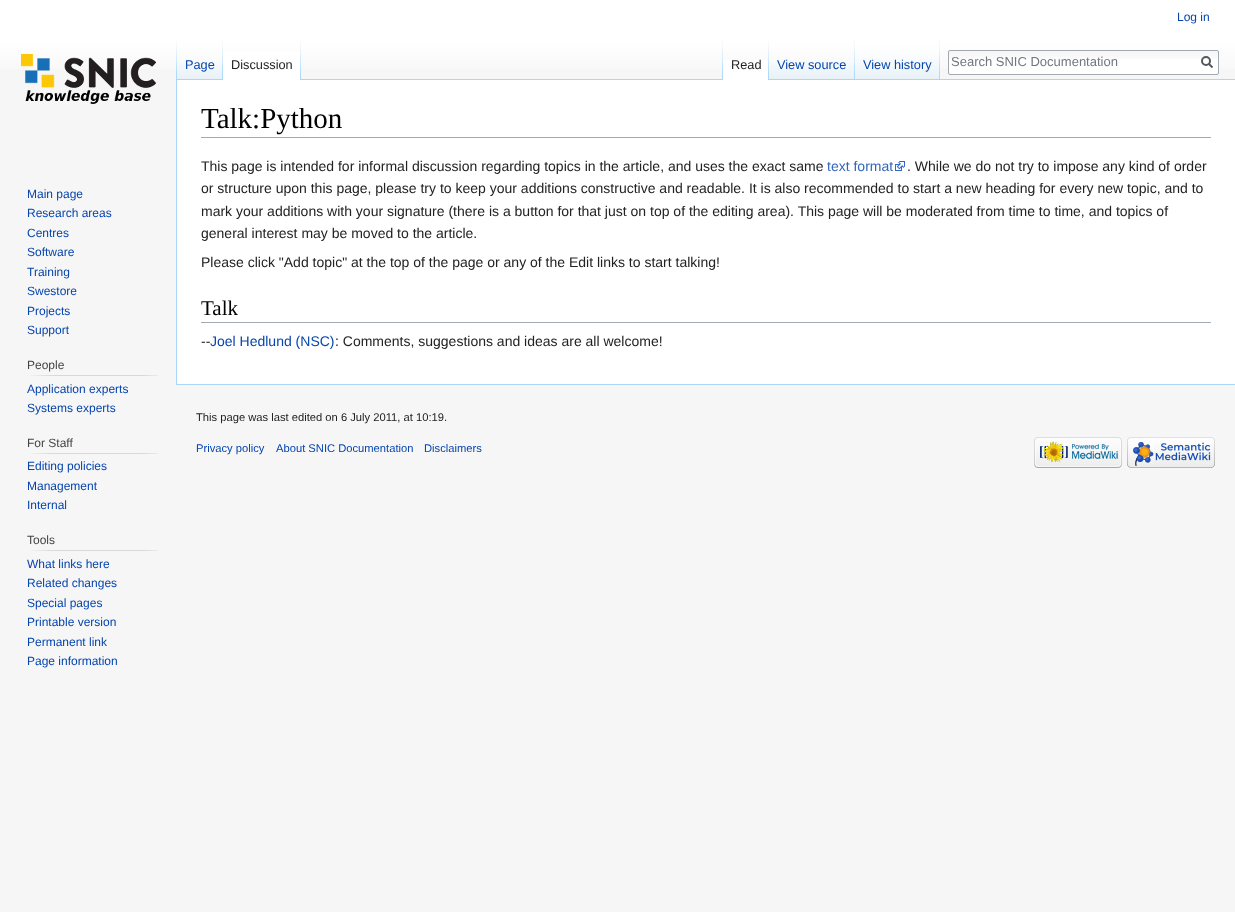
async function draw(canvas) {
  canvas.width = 1235
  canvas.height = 912
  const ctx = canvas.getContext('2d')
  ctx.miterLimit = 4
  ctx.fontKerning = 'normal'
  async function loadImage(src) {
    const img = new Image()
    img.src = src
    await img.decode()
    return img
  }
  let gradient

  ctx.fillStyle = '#f6f6f6'
  ctx.fillRect(0, 0, 1235, 912)
  gradient = ctx.createLinearGradient(618, 0, 618, 80)
  gradient.addColorStop(0.5, '#fff')
  gradient.addColorStop(1, '#f6f6f6')
  ctx.fillStyle = gradient
  ctx.fillRect(0, 0, 1235, 69)
  ctx.font = '12px Liberation Sans'
  ctx.fillStyle = '#0645ad'
  ctx.fillText('Log in', 1177, 21)
  ctx.drawImage(await loadImage('image0.png'), 176, 40, 1, 39)
  ctx.drawImage(await loadImage('image1.png'), 177, 62, 45, 17)
  ctx.drawImage(await loadImage('image0.png'), 222, 40, 1, 39)
  ctx.font = '12.75px Liberation Sans'
  ctx.fillText('Page', 185, 69)
  ctx.fillStyle = '#a7d7f9'
  ctx.fillRect(176, 79, 1059, 1)
  ctx.fillStyle = '#fff'
  ctx.fillRect(223, 51, 77, 29)
  ctx.drawImage(await loadImage('image2.png'), 300, 40, 1, 40)
  ctx.fillStyle = '#222'
  ctx.fillText('Discussion', 231, 69)
  ctx.drawImage(await loadImage('image0.png'), 722, 40, 1, 39)
  ctx.fillStyle = '#fff'
  ctx.fillRect(723, 60, 45, 20)
  ctx.drawImage(await loadImage('image2.png'), 768, 40, 1, 40)
  ctx.fillStyle = '#222'
  ctx.fillText('Read', 731, 69)
  ctx.drawImage(await loadImage('image3.png'), 769, 62, 85, 17)
  ctx.drawImage(await loadImage('image0.png'), 854, 40, 1, 39)
  ctx.fillStyle = '#0645ad'
  ctx.fillText('View source', 777, 69)
  ctx.drawImage(await loadImage('image4.png'), 855, 40, 84, 39)
  ctx.drawImage(await loadImage('image0.png'), 939, 40, 1, 39)
  ctx.fillText('View history', 863, 69)
  ctx.fillStyle = '#fff'
  ctx.beginPath()
  ctx.roundRect(948, 50, 271, 25, 2)
  ctx.fill()
  ctx.drawImage(await loadImage('image5.png'), 948, 51, 271, 8)
  ctx.beginPath()
  ctx.roundRect(948.5, 50.5, 270, 24, 1.5)
  ctx.strokeStyle = '#a2a9b1'
  ctx.stroke()
  ctx.font = '13px Liberation Sans'
  ctx.fillStyle = '#72777d'
  ctx.fillText('Search SNIC Documentation', 951, 66)
  ctx.beginPath()
  ctx.moveTo(1212.5, 67.5)
  ctx.lineTo(1208.5, 63.5)
  ctx.strokeStyle = '#54595d'
  ctx.lineWidth = 2
  ctx.stroke()
  ctx.beginPath()
  ctx.arc(1206, 61, 4, 0, 2 * Math.PI)
  ctx.stroke()
  ctx.drawImage(await loadImage('image6.png'), 21, 54, 135, 50)
  ctx.font = '12px Liberation Sans'
  ctx.fillStyle = '#0645ad'
  ctx.fillText('Main page', 27, 198)
  ctx.fillText('Research areas', 27, 217)
  ctx.fillText('Centres', 27, 237)
  ctx.fillText('Software', 27, 256)
  ctx.fillText('Training', 27, 276)
  ctx.fillText('Swestore', 27, 295)
  ctx.fillText('Projects', 27, 315)
  ctx.fillText('Support', 27, 334)
  ctx.fillStyle = '#444'
  ctx.fillText('People', 27, 369)
  ctx.drawImage(await loadImage('image7.png'), 30, 375, 128, 1)
  ctx.fillStyle = '#0645ad'
  ctx.fillText('Application experts', 27, 393)
  ctx.fillText('Systems experts', 27, 412)
  ctx.fillStyle = '#444'
  ctx.fillText('For Staff', 27, 447)
  ctx.drawImage(await loadImage('image7.png'), 30, 453, 128, 1)
  ctx.fillStyle = '#0645ad'
  ctx.fillText('Editing policies', 27, 470)
  ctx.fillText('Management', 27, 490)
  ctx.fillText('Internal', 27, 509)
  ctx.fillStyle = '#444'
  ctx.fillText('Tools', 27, 544)
  ctx.drawImage(await loadImage('image7.png'), 30, 550, 128, 1)
  ctx.fillStyle = '#0645ad'
  ctx.fillText('What links here', 27, 568)
  ctx.fillText('Related changes', 27, 587)
  ctx.fillText('Special pages', 27, 607)
  ctx.fillText('Printable version', 27, 626)
  ctx.fillText('Permanent link', 27, 646)
  ctx.fillText('Page information', 27, 665)
  ctx.fillStyle = '#fff'
  ctx.fillRect(177, 80, 1058, 304)
  ctx.fillStyle = '#a7d7f9'
  ctx.fillRect(176, 384, 1059, 1)
  ctx.fillRect(176, 79, 1, 306)
  ctx.fillStyle = '#a2a9b1'
  ctx.fillRect(201, 137, 1010, 1)
  ctx.font = '29px Liberation Serif'
  ctx.fillStyle = '#000'
  ctx.fillText('Talk:Python', 201, 128)
  ctx.font = '14px Liberation Sans'
  ctx.fillStyle = '#222'
  ctx.fillText('This page is intended for informal discussion regarding topics in the article, and uses the exact same', 201, 171)
  ctx.fillStyle = '#36b'
  ctx.fillText('text format', 827, 171)
  ctx.drawImage(await loadImage('image8.png'), 895, 161, 10, 10)
  ctx.fillStyle = '#222'
  ctx.fillText('. While we do not try to impose any kind of order', 907, 171)
  ctx.fillText('or structure upon this page, please try to keep your additions constructive and readable. It is also recommended to start a new heading for every new topic, and to', 201, 193)
  ctx.fillText('mark your additions with your signature (there is a button for that just on top of the editing area). This page will be moderated from time to time, and topics of', 201, 216)
  ctx.fillText('general interest may be moved to the article.', 201, 238)
  ctx.fillText('Please click "Add topic" at the top of the page or any of the Edit links to start talking!', 201, 267)
  ctx.fillStyle = '#a2a9b1'
  ctx.fillRect(201, 322, 1010, 1)
  ctx.font = '21px Liberation Serif'
  ctx.fillStyle = '#000'
  ctx.fillText('Talk', 201, 315)
  ctx.font = '14px Liberation Sans'
  ctx.fillStyle = '#222'
  ctx.fillText('--', 201, 346)
  ctx.fillStyle = '#0645ad'
  ctx.fillText('Joel Hedlund (NSC)', 210, 346)
  ctx.fillStyle = '#222'
  ctx.fillText(': Comments, suggestions and ideas are all welcome!', 335, 346)
  ctx.font = '11.2px Liberation Sans'
  ctx.fillText('This page was last edited on 6 July 2011, at 10:19.', 196, 421)
  ctx.fillStyle = '#0645ad'
  ctx.fillText('Privacy policy', 196, 452)
  ctx.fillText('About SNIC Documentation', 276, 452)
  ctx.fillText('Disclaimers', 424, 452)
  ctx.drawImage(await loadImage('image9.png'), 1034, 437, 88, 31)
  ctx.drawImage(await loadImage('image10.png'), 1127, 437, 88, 31)
}

draw(document.querySelector('canvas'))
